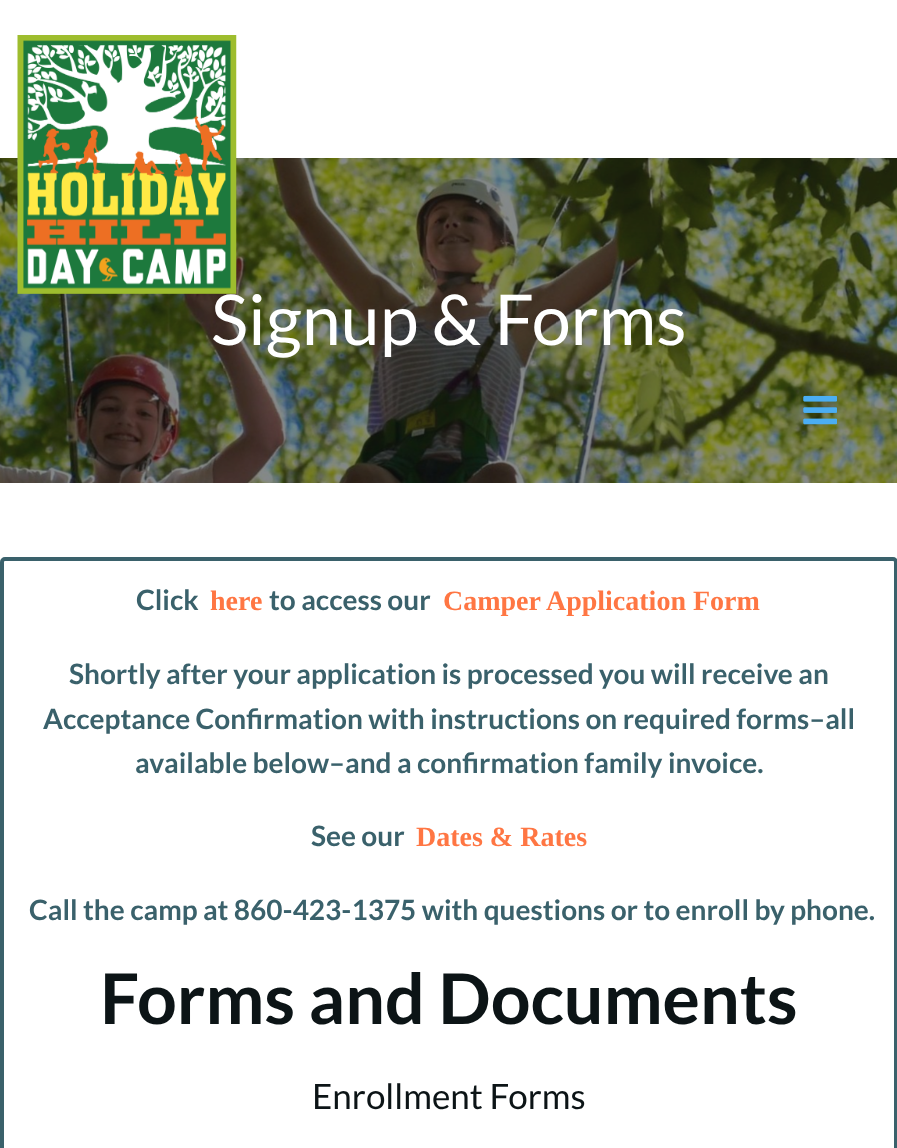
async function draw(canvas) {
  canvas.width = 897
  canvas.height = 1148
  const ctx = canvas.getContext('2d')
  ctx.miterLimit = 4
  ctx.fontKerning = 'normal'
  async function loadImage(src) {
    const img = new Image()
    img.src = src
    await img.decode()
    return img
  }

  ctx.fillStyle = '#fff'
  ctx.fillRect(0, 0, 897, 1148)
  ctx.drawImage(await loadImage('image2.png'), 0, 158, 897, 325)
  ctx.font = '70px Lato'
  ctx.fillText('Signup & Forms', 211, 345)
  ctx.drawImage(await loadImage('image0.png'), 17, 35, 220, 259)
  ctx.drawImage(await loadImage('image1.png'), 803, 395, 34, 30)
  ctx.beginPath()
  ctx.roundRect(2, 559, 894, 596, 3)
  ctx.strokeStyle = '#3a616b'
  ctx.lineWidth = 4
  ctx.stroke()
  ctx.font = 'bold 28px Lato'
  ctx.fillStyle = '#3a616b'
  ctx.fillText('Click', 136, 610)
  ctx.font = 'bold 28px Liberation Serif'
  ctx.fillStyle = '#ff7643'
  ctx.fillText('here', 210, 610)
  ctx.font = 'bold 28px Lato'
  ctx.fillStyle = '#3a616b'
  ctx.fillText('to access our', 269, 610)
  ctx.font = 'bold 28px Liberation Serif'
  ctx.fillStyle = '#ff7643'
  ctx.fillText('Camper Application Form', 443, 610)
  ctx.font = 'bold 28px Lato'
  ctx.fillStyle = '#3a616b'
  ctx.fillText('Shortly after your application is processed you will receive an', 69, 684)
  ctx.fillText('Acceptance Confirmation with instructions on required forms–all', 43, 729)
  ctx.fillText('available below–and a confirmation family invoice.', 135, 773)
  ctx.fillText('See our', 311, 846)
  ctx.font = 'bold 28px Liberation Serif'
  ctx.fillStyle = '#ff7643'
  ctx.fillText('Dates & Rates', 416, 846)
  ctx.font = 'bold 28px Lato'
  ctx.fillStyle = '#3a616b'
  ctx.fillText('Call the camp at 860-423-1375 with questions or to enroll by phone.', 29, 920)
  ctx.font = 'bold 70px Lato'
  ctx.fillStyle = '#0c1416'
  ctx.fillText('Forms and Documents', 100, 1024)
  ctx.font = '35px Lato'
  ctx.fillText('Enrollment Forms', 312, 1109)
}

draw(document.querySelector('canvas'))
